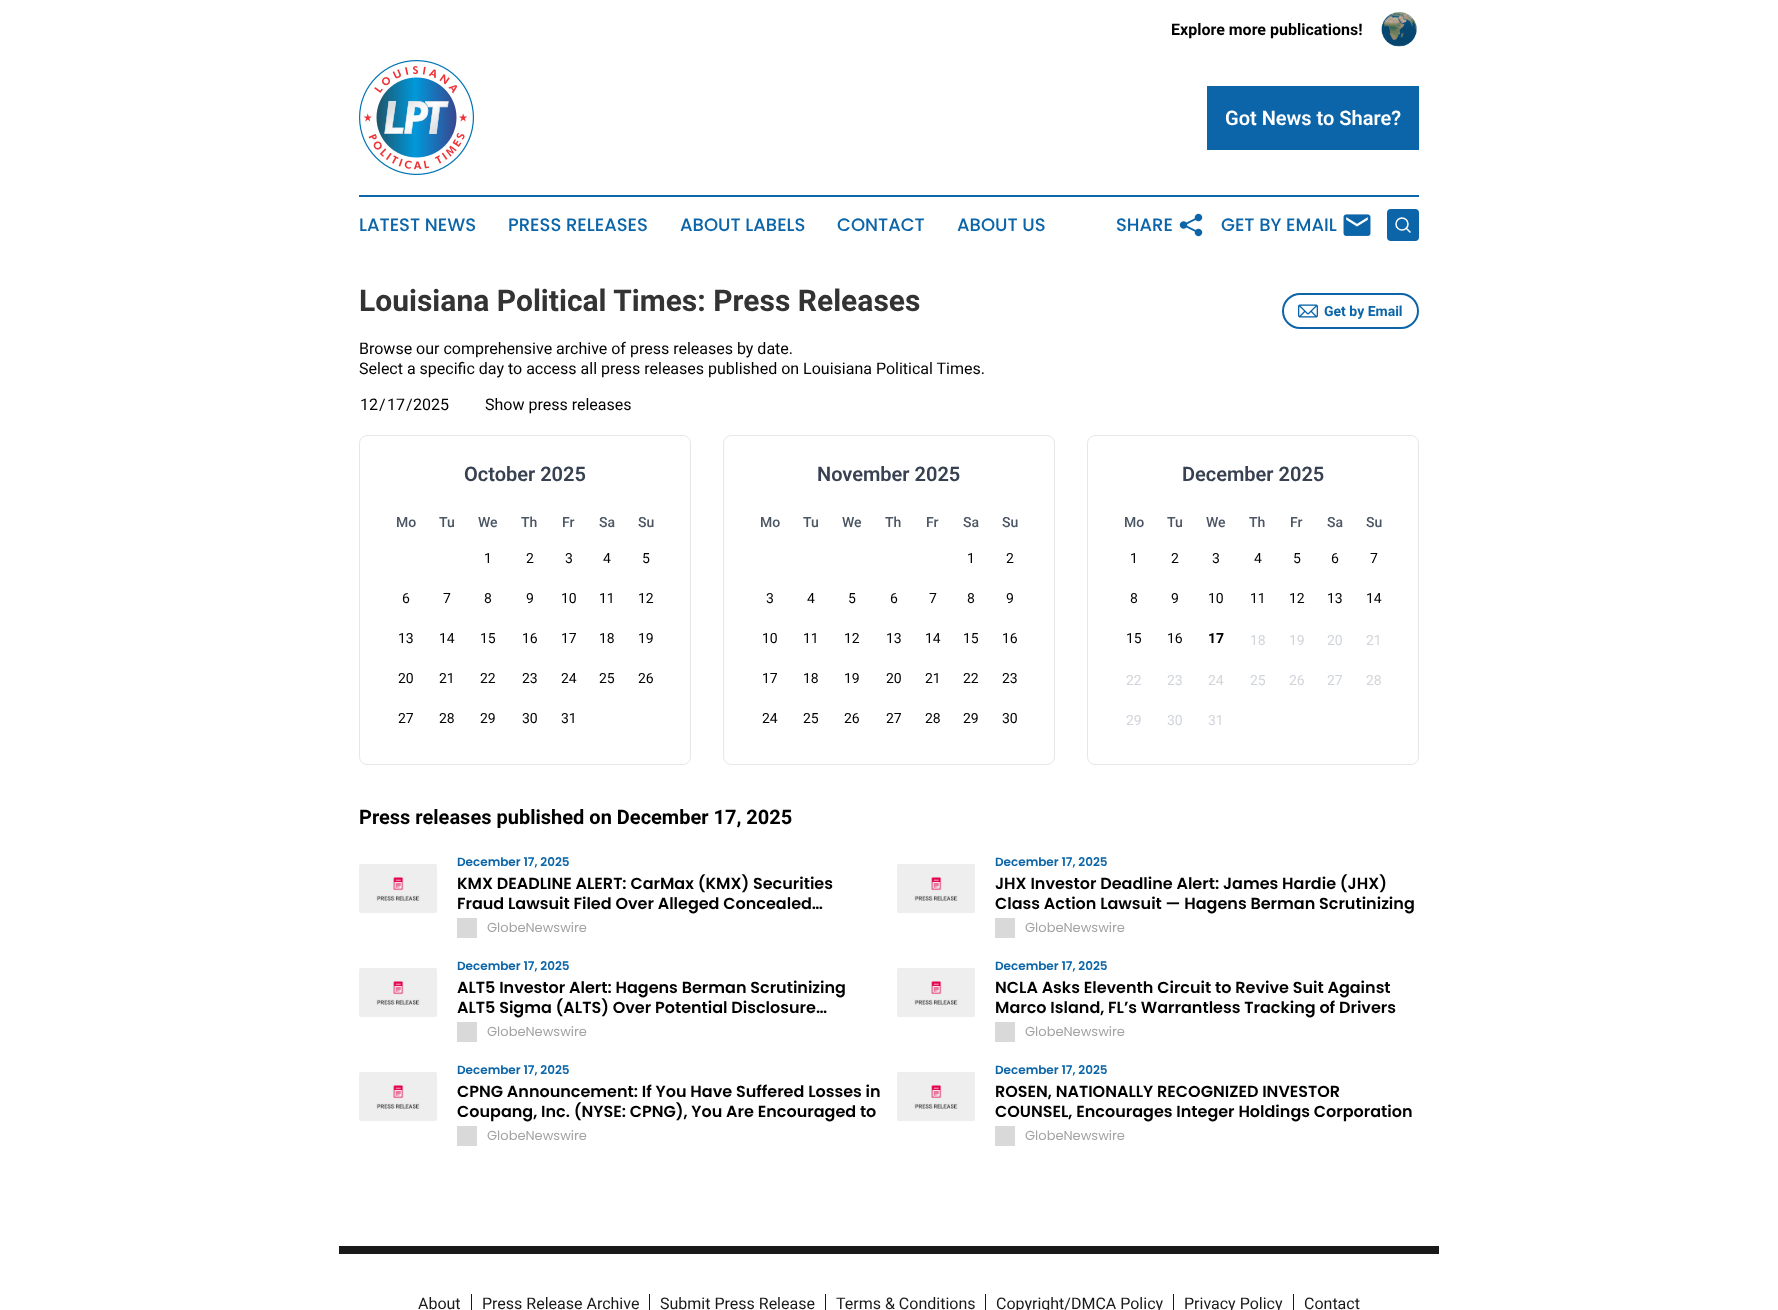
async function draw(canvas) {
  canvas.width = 1778
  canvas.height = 1310
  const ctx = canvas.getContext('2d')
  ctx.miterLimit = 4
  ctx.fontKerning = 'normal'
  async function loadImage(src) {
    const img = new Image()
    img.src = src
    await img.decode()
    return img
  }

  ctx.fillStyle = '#fff'
  ctx.fillRect(0, 0, 1778, 1310)
  ctx.font = 'bold 16px Roboto'
  ctx.fillStyle = '#000'
  ctx.fillText('Explore more publications!', 1171, 35)
  ctx.drawImage(await loadImage('image0.png'), 1381, 12, 36, 35)
  ctx.drawImage(await loadImage('image1.png'), 359, 60, 115, 115)
  ctx.fillStyle = '#0b65a8'
  ctx.fillRect(1207, 86, 212, 64)
  ctx.font = '600 20px Roboto'
  ctx.fillStyle = '#fff'
  ctx.fillText('Got News to Share?', 1225, 125)
  ctx.fillStyle = '#0b65a8'
  ctx.fillRect(359, 195, 1060, 2)
  ctx.font = '500 18px Poppins'
  ctx.fillText('LATEST NEWS', 359, 231)
  ctx.fillText('PRESS RELEASES', 508, 231)
  ctx.fillText('ABOUT LABELS', 680, 231)
  ctx.fillText('CONTACT', 837, 231)
  ctx.fillText('ABOUT US', 957, 231)
  ctx.fillText('SHARE', 1116, 231)
  ctx.drawImage(await loadImage('image2.png'), 1179, 213, 24, 24)
  ctx.fillText('GET BY EMAIL', 1221, 231)
  ctx.drawImage(await loadImage('image3.png'), 1343, 214, 28, 22)
  ctx.beginPath()
  ctx.roundRect(1387, 209, 32, 32, 4)
  ctx.fill()
  ctx.beginPath()
  ctx.arc(1402, 224, 6, 0, 2 * Math.PI)
  ctx.strokeStyle = '#fff'
  ctx.lineWidth = 1.5
  ctx.stroke()
  ctx.beginPath()
  ctx.moveTo(1410, 232)
  ctx.lineTo(1406.5, 228.5)
  ctx.lineCap = 'round'
  ctx.lineJoin = 'round'
  ctx.stroke()
  ctx.font = 'bold 30px Roboto'
  ctx.fillStyle = '#333'
  ctx.fillText('Louisiana Political Times: Press Releases', 359, 311)
  ctx.beginPath()
  ctx.roundRect(1283, 294, 135, 34, 17)
  ctx.strokeStyle = '#0b65a8'
  ctx.lineWidth = 2
  ctx.lineJoin = 'miter'
  ctx.stroke()
  ctx.drawImage(await loadImage('image4.png'), 1298, 304, 20, 14)
  ctx.font = 'bold 14px Roboto'
  ctx.fillStyle = '#0b65a8'
  ctx.fillText('Get by Email', 1324, 316)
  ctx.font = '16px Roboto'
  ctx.fillStyle = '#000'
  ctx.fillText('Browse our comprehensive archive of press releases by date.', 359, 354)
  ctx.fillText('Select a specific day to access all press releases published on Louisiana Political Times.', 359, 374)
  ctx.fillText('12', 360, 410)
  ctx.fillText('/', 379, 410)
  ctx.fillText('17', 387, 410)
  ctx.fillText('/', 406, 410)
  ctx.fillText('2025', 413, 410)
  ctx.fillText('Show press releases', 485, 410)
  ctx.beginPath()
  ctx.roundRect(359.5, 435.5, 331, 329, 7.5)
  ctx.strokeStyle = '#e5e7eb'
  ctx.lineWidth = 1
  ctx.stroke()
  ctx.font = '600 20px Roboto'
  ctx.fillStyle = '#374151'
  ctx.fillText('October 2025', 464, 481)
  ctx.font = '500 14px Roboto'
  ctx.fillStyle = '#4b5563'
  ctx.fillText('Mo', 396, 527)
  ctx.fillText('Tu', 439, 527)
  ctx.fillText('We', 478, 527)
  ctx.fillText('Th', 521, 527)
  ctx.fillText('Fr', 562, 527)
  ctx.fillText('Sa', 599, 527)
  ctx.fillText('Su', 638, 527)
  ctx.font = '14px Roboto'
  ctx.fillStyle = '#000'
  ctx.fillText('1', 484, 563)
  ctx.fillText('2', 526, 563)
  ctx.fillText('3', 565, 563)
  ctx.fillText('4', 603, 563)
  ctx.fillText('5', 642, 563)
  ctx.fillText('6', 402, 603)
  ctx.fillText('7', 443, 603)
  ctx.fillText('8', 484, 603)
  ctx.fillText('9', 526, 603)
  ctx.fillText('10', 561, 603)
  ctx.fillText('11', 599, 603)
  ctx.fillText('12', 638, 603)
  ctx.fillText('13', 398, 643)
  ctx.fillText('14', 439, 643)
  ctx.fillText('15', 480, 643)
  ctx.fillText('16', 522, 643)
  ctx.fillText('17', 561, 643)
  ctx.fillText('18', 599, 643)
  ctx.fillText('19', 638, 643)
  ctx.fillText('20', 398, 683)
  ctx.fillText('21', 439, 683)
  ctx.fillText('22', 480, 683)
  ctx.fillText('23', 522, 683)
  ctx.fillText('24', 561, 683)
  ctx.fillText('25', 599, 683)
  ctx.fillText('26', 638, 683)
  ctx.fillText('27', 398, 723)
  ctx.fillText('28', 439, 723)
  ctx.fillText('29', 480, 723)
  ctx.fillText('30', 522, 723)
  ctx.fillText('31', 561, 723)
  ctx.beginPath()
  ctx.roundRect(723.5, 435.5, 331, 329, 7.5)
  ctx.stroke()
  ctx.font = '600 20px Roboto'
  ctx.fillStyle = '#374151'
  ctx.fillText('November 2025', 817, 481)
  ctx.font = '500 14px Roboto'
  ctx.fillStyle = '#4b5563'
  ctx.fillText('Mo', 760, 527)
  ctx.fillText('Tu', 803, 527)
  ctx.fillText('We', 842, 527)
  ctx.fillText('Th', 885, 527)
  ctx.fillText('Fr', 926, 527)
  ctx.fillText('Sa', 963, 527)
  ctx.fillText('Su', 1002, 527)
  ctx.font = '14px Roboto'
  ctx.fillStyle = '#000'
  ctx.fillText('1', 967, 563)
  ctx.fillText('2', 1006, 563)
  ctx.fillText('3', 766, 603)
  ctx.fillText('4', 807, 603)
  ctx.fillText('5', 848, 603)
  ctx.fillText('6', 890, 603)
  ctx.fillText('7', 929, 603)
  ctx.fillText('8', 967, 603)
  ctx.fillText('9', 1006, 603)
  ctx.fillText('10', 762, 643)
  ctx.fillText('11', 803, 643)
  ctx.fillText('12', 844, 643)
  ctx.fillText('13', 886, 643)
  ctx.fillText('14', 925, 643)
  ctx.fillText('15', 963, 643)
  ctx.fillText('16', 1002, 643)
  ctx.fillText('17', 762, 683)
  ctx.fillText('18', 803, 683)
  ctx.fillText('19', 844, 683)
  ctx.fillText('20', 886, 683)
  ctx.fillText('21', 925, 683)
  ctx.fillText('22', 963, 683)
  ctx.fillText('23', 1002, 683)
  ctx.fillText('24', 762, 723)
  ctx.fillText('25', 803, 723)
  ctx.fillText('26', 844, 723)
  ctx.fillText('27', 886, 723)
  ctx.fillText('28', 925, 723)
  ctx.fillText('29', 963, 723)
  ctx.fillText('30', 1002, 723)
  ctx.beginPath()
  ctx.roundRect(1087.5, 435.5, 331, 329, 7.5)
  ctx.stroke()
  ctx.font = '600 20px Roboto'
  ctx.fillStyle = '#374151'
  ctx.fillText('December 2025', 1182, 481)
  ctx.font = '500 14px Roboto'
  ctx.fillStyle = '#4b5563'
  ctx.fillText('Mo', 1124, 527)
  ctx.fillText('Tu', 1167, 527)
  ctx.fillText('We', 1206, 527)
  ctx.fillText('Th', 1249, 527)
  ctx.fillText('Fr', 1290, 527)
  ctx.fillText('Sa', 1327, 527)
  ctx.fillText('Su', 1366, 527)
  ctx.font = '14px Roboto'
  ctx.fillStyle = '#000'
  ctx.fillText('1', 1130, 563)
  ctx.fillText('2', 1171, 563)
  ctx.fillText('3', 1212, 563)
  ctx.fillText('4', 1254, 563)
  ctx.fillText('5', 1293, 563)
  ctx.fillText('6', 1331, 563)
  ctx.fillText('7', 1370, 563)
  ctx.fillText('8', 1130, 603)
  ctx.fillText('9', 1171, 603)
  ctx.fillText('10', 1208, 603)
  ctx.fillText('11', 1250, 603)
  ctx.fillText('12', 1289, 603)
  ctx.fillText('13', 1327, 603)
  ctx.fillText('14', 1366, 603)
  ctx.fillText('15', 1126, 643)
  ctx.fillText('16', 1167, 643)
  ctx.font = 'bold 14px Roboto'
  ctx.fillText('17', 1208, 643)
  ctx.font = '14px Roboto'
  ctx.fillStyle = '#d1d5db'
  ctx.fillText('18', 1250, 645)
  ctx.fillText('19', 1289, 645)
  ctx.fillText('20', 1327, 645)
  ctx.fillText('21', 1366, 645)
  ctx.fillText('22', 1126, 685)
  ctx.fillText('23', 1167, 685)
  ctx.fillText('24', 1208, 685)
  ctx.fillText('25', 1250, 685)
  ctx.fillText('26', 1289, 685)
  ctx.fillText('27', 1327, 685)
  ctx.fillText('28', 1366, 685)
  ctx.fillText('29', 1126, 725)
  ctx.fillText('30', 1167, 725)
  ctx.fillText('31', 1208, 725)
  ctx.font = 'bold 20px Roboto'
  ctx.fillStyle = '#000'
  ctx.fillText('Press releases published on December 17, 2025', 359, 824)
  ctx.drawImage(await loadImage('image5.png'), 359, 864, 78, 49)
  ctx.font = '600 12px Poppins'
  ctx.fillStyle = '#0b65a8'
  ctx.fillText('December 17, 2025', 457, 866)
  ctx.font = '600 16px Poppins'
  ctx.fillStyle = '#000'
  ctx.fillText('KMX DEADLINE ALERT: CarMax (KMX) Securities', 457, 889)
  ctx.fillText('Fraud Lawsuit Filed Over Alleged Concealed…', 457, 909)
  ctx.fillStyle = '#d9d9d9'
  ctx.fillRect(457, 918, 20, 20)
  ctx.font = '13px Poppins'
  ctx.fillStyle = '#a3a3a3'
  ctx.fillText('GlobeNewswire', 487, 932)
  ctx.drawImage(await loadImage('image5.png'), 897, 864, 78, 49)
  ctx.font = '600 12px Poppins'
  ctx.fillStyle = '#0b65a8'
  ctx.fillText('December 17, 2025', 995, 866)
  ctx.font = '600 16px Poppins'
  ctx.fillStyle = '#000'
  ctx.fillText('JHX Investor Deadline Alert: James Hardie (JHX)', 995, 889)
  ctx.fillText('Class Action Lawsuit — Hagens Berman Scrutinizing', 995, 909)
  ctx.fillStyle = '#d9d9d9'
  ctx.fillRect(995, 918, 20, 20)
  ctx.font = '13px Poppins'
  ctx.fillStyle = '#a3a3a3'
  ctx.fillText('GlobeNewswire', 1025, 932)
  ctx.drawImage(await loadImage('image5.png'), 359, 968, 78, 49)
  ctx.font = '600 12px Poppins'
  ctx.fillStyle = '#0b65a8'
  ctx.fillText('December 17, 2025', 457, 970)
  ctx.font = '600 16px Poppins'
  ctx.fillStyle = '#000'
  ctx.fillText('ALT5 Investor Alert: Hagens Berman Scrutinizing', 457, 993)
  ctx.fillText('ALT5 Sigma (ALTS) Over Potential Disclosure…', 457, 1013)
  ctx.fillStyle = '#d9d9d9'
  ctx.fillRect(457, 1022, 20, 20)
  ctx.font = '13px Poppins'
  ctx.fillStyle = '#a3a3a3'
  ctx.fillText('GlobeNewswire', 487, 1036)
  ctx.drawImage(await loadImage('image5.png'), 897, 968, 78, 49)
  ctx.font = '600 12px Poppins'
  ctx.fillStyle = '#0b65a8'
  ctx.fillText('December 17, 2025', 995, 970)
  ctx.font = '600 16px Poppins'
  ctx.fillStyle = '#000'
  ctx.fillText('NCLA Asks Eleventh Circuit to Revive Suit Against', 995, 993)
  ctx.fillText('Marco Island, FL’s Warrantless Tracking of Drivers', 995, 1013)
  ctx.fillStyle = '#d9d9d9'
  ctx.fillRect(995, 1022, 20, 20)
  ctx.font = '13px Poppins'
  ctx.fillStyle = '#a3a3a3'
  ctx.fillText('GlobeNewswire', 1025, 1036)
  ctx.drawImage(await loadImage('image5.png'), 359, 1072, 78, 49)
  ctx.font = '600 12px Poppins'
  ctx.fillStyle = '#0b65a8'
  ctx.fillText('December 17, 2025', 457, 1074)
  ctx.font = '600 16px Poppins'
  ctx.fillStyle = '#000'
  ctx.fillText('CPNG Announcement: If You Have Suffered Losses in', 457, 1097)
  ctx.fillText('Coupang, Inc. (NYSE: CPNG), You Are Encouraged to', 457, 1117)
  ctx.fillStyle = '#d9d9d9'
  ctx.fillRect(457, 1126, 20, 20)
  ctx.font = '13px Poppins'
  ctx.fillStyle = '#a3a3a3'
  ctx.fillText('GlobeNewswire', 487, 1140)
  ctx.drawImage(await loadImage('image5.png'), 897, 1072, 78, 49)
  ctx.font = '600 12px Poppins'
  ctx.fillStyle = '#0b65a8'
  ctx.fillText('December 17, 2025', 995, 1074)
  ctx.font = '600 16px Poppins'
  ctx.fillStyle = '#000'
  ctx.fillText('ROSEN, NATIONALLY RECOGNIZED INVESTOR', 995, 1097)
  ctx.fillText('COUNSEL, Encourages Integer Holdings Corporation', 995, 1117)
  ctx.fillStyle = '#d9d9d9'
  ctx.fillRect(995, 1126, 20, 20)
  ctx.font = '13px Poppins'
  ctx.fillStyle = '#a3a3a3'
  ctx.fillText('GlobeNewswire', 1025, 1140)
  ctx.fillStyle = '#191919'
  ctx.fillRect(339, 1246, 1100, 8)
  ctx.fillRect(471, 1294, 1, 16)
  ctx.font = '16px Roboto'
  ctx.fillText('About', 418, 1309)
  ctx.fillRect(649, 1294, 1, 16)
  ctx.fillText('Press Release Archive', 482, 1309)
  ctx.fillRect(825, 1294, 1, 16)
  ctx.fillText('Submit Press Release', 660, 1309)
  ctx.fillRect(985, 1294, 1, 16)
  ctx.fillText('Terms & Conditions', 836, 1309)
  ctx.fillRect(1173, 1294, 1, 16)
  ctx.fillText('Copyright/DMCA Policy', 996, 1309)
  ctx.fillRect(1293, 1294, 1, 16)
  ctx.fillText('Privacy Policy', 1184, 1309)
  ctx.fillText('Contact', 1304, 1309)
}

draw(document.querySelector('canvas'))
